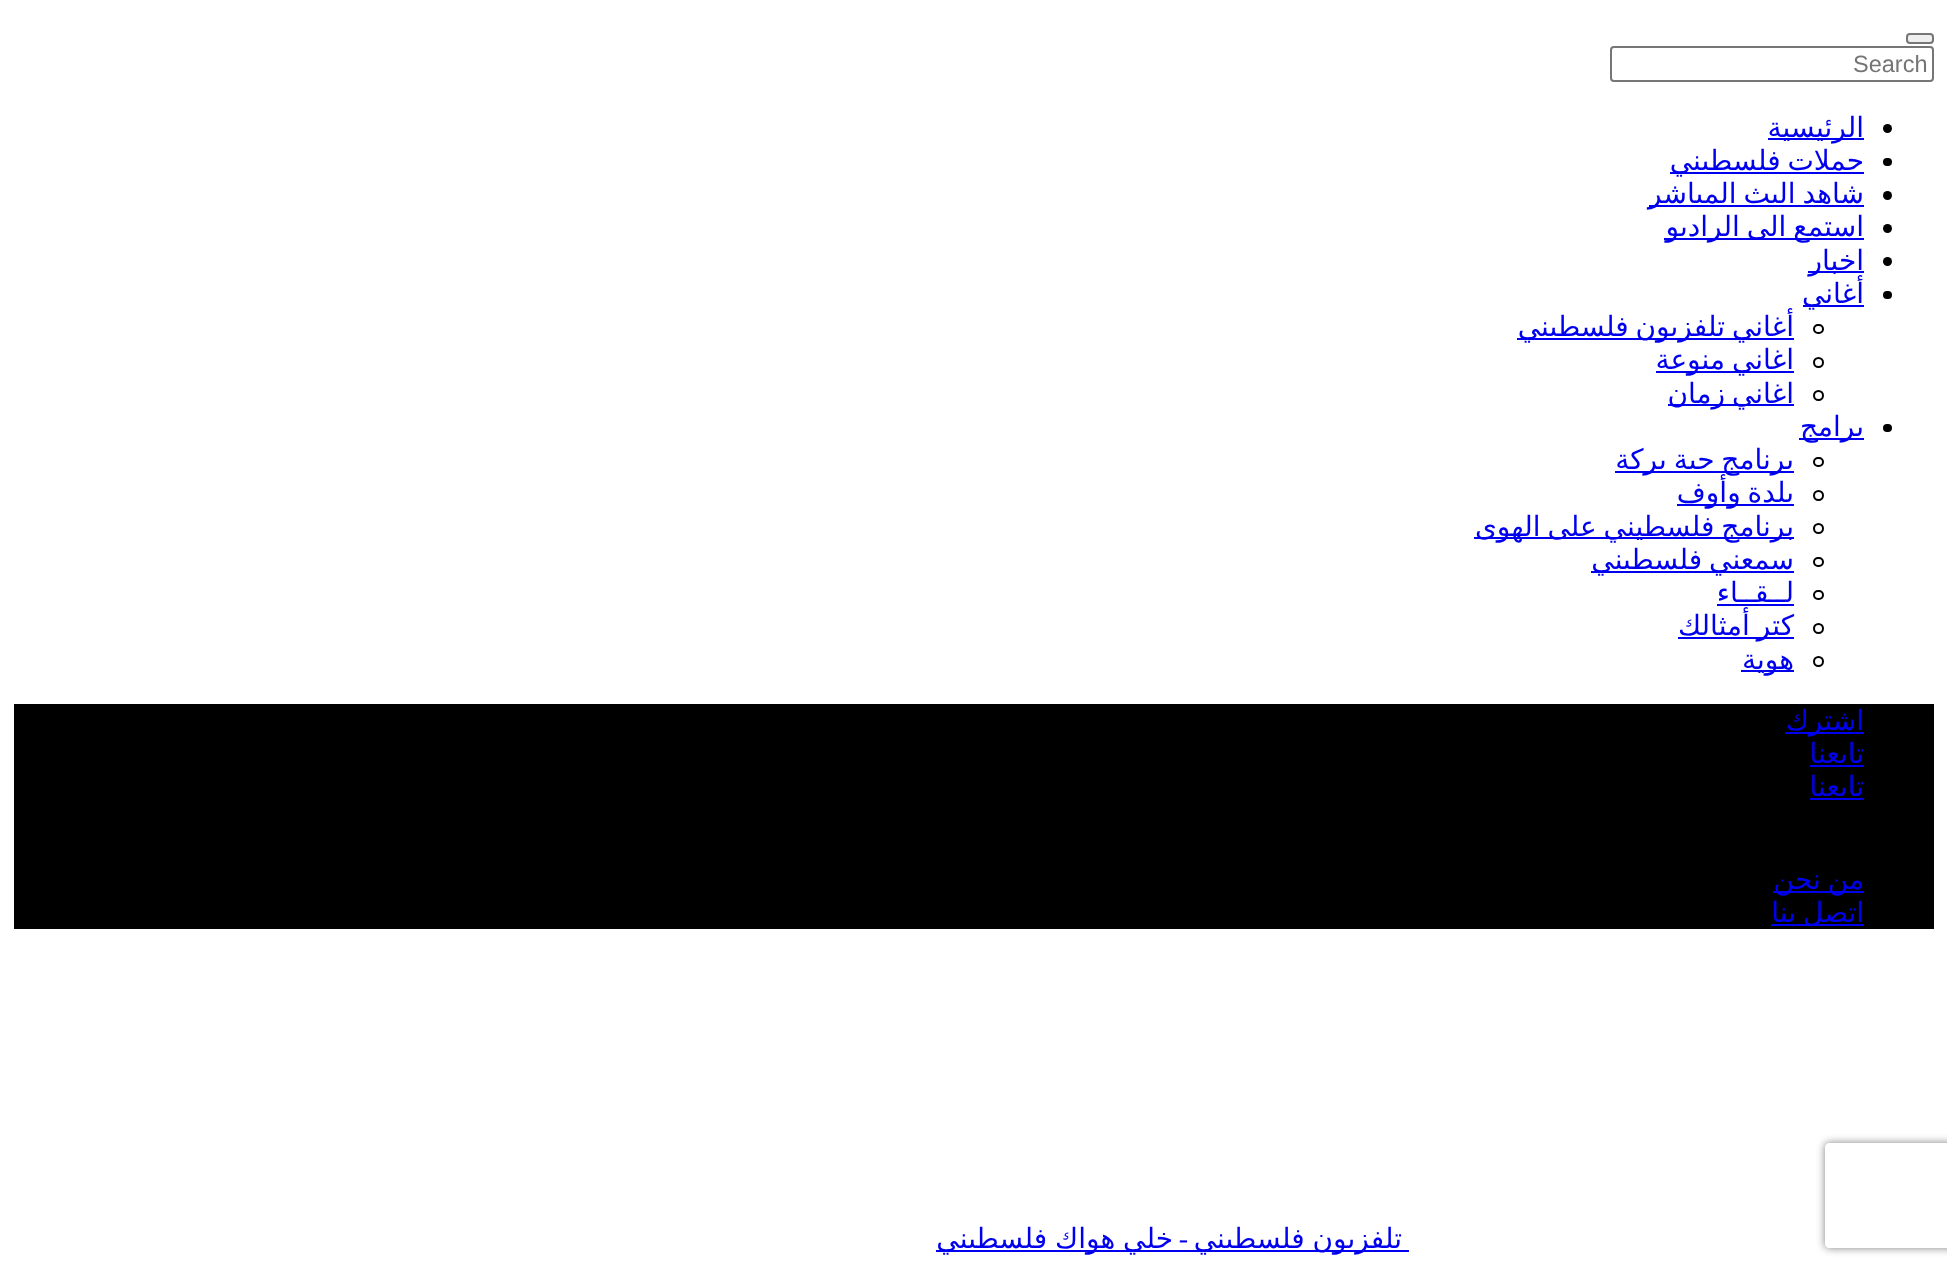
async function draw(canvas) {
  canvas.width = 1947
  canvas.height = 1271
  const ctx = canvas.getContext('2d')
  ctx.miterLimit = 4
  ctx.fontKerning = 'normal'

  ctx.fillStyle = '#fff'
  ctx.fillRect(0, 0, 1947, 1271)
  ctx.fillStyle = '#efefef'
  ctx.beginPath()
  ctx.roundRect(1907, 34, 26, 9, 3)
  ctx.fill()
  ctx.strokeStyle = '#767676'
  ctx.lineWidth = 2
  ctx.stroke()
  ctx.beginPath()
  ctx.roundRect(1611, 47, 322, 34, 3)
  ctx.stroke()
  ctx.font = '23.5px Liberation Sans'
  ctx.fillStyle = '#757575'
  ctx.fillText('Search', 1853, 72)
  ctx.fillStyle = '#000'
  ctx.beginPath()
  ctx.arc(1887.5, 128.5, 4.5, 0, 2 * Math.PI)
  ctx.fill()
  ctx.fillStyle = '#00e'
  ctx.fillRect(1768, 138, 96, 2)
  ctx.direction = 'rtl'
  ctx.font = '28px DejaVu Sans'
  ctx.fillText('الرئيسية', 1864, 137)
  ctx.fillStyle = '#000'
  ctx.beginPath()
  ctx.roundRect(1883, 158, 9, 8, 4)
  ctx.fill()
  ctx.fillStyle = '#00e'
  ctx.fillRect(1670, 172, 194, 2)
  ctx.wordSpacing = '-2px'
  ctx.fillText('حملات فلسطيني', 1864, 170)
  ctx.fillStyle = '#000'
  ctx.beginPath()
  ctx.arc(1887.5, 195.5, 4.5, 0, 2 * Math.PI)
  ctx.fill()
  ctx.fillStyle = '#00e'
  ctx.fillRect(1649, 205, 215, 2)
  ctx.fillText('شاهد البث المباشر', 1864, 203)
  ctx.fillStyle = '#000'
  ctx.beginPath()
  ctx.arc(1887.5, 228.5, 4.5, 0, 2 * Math.PI)
  ctx.fill()
  ctx.fillStyle = '#00e'
  ctx.fillRect(1664, 238, 200, 2)
  ctx.fillText('استمع الى الراديو', 1864, 236)
  ctx.fillStyle = '#000'
  ctx.beginPath()
  ctx.arc(1887.5, 261.5, 4.5, 0, 2 * Math.PI)
  ctx.fill()
  ctx.fillStyle = '#00e'
  ctx.fillRect(1808, 271, 56, 2)
  ctx.wordSpacing = '0px'
  ctx.fillText('اخبار', 1864, 270)
  ctx.fillStyle = '#000'
  ctx.beginPath()
  ctx.roundRect(1883, 291, 9, 8, 4)
  ctx.fill()
  ctx.fillStyle = '#00e'
  ctx.fillRect(1803, 305, 61, 2)
  ctx.fillText('أغاني', 1864, 303)
  ctx.beginPath()
  ctx.roundRect(1814, 325, 9, 8, 4)
  ctx.strokeStyle = '#000'
  ctx.stroke()
  ctx.fillRect(1517, 338, 277, 2)
  ctx.wordSpacing = '-2px'
  ctx.fillText('أغاني تلفزيون فلسطيني', 1794, 336)
  ctx.beginPath()
  ctx.arc(1818.5, 362.5, 4.5, 0, 2 * Math.PI)
  ctx.stroke()
  ctx.fillRect(1656, 371, 138, 2)
  ctx.fillText('اغاني منوعة', 1794, 369)
  ctx.beginPath()
  ctx.arc(1818.5, 395.5, 4.5, 0, 2 * Math.PI)
  ctx.stroke()
  ctx.fillRect(1668, 404, 126, 2)
  ctx.fillText('اغاني زمان', 1794, 403)
  ctx.fillStyle = '#000'
  ctx.beginPath()
  ctx.roundRect(1883, 424, 9, 8, 4)
  ctx.fill()
  ctx.fillStyle = '#00e'
  ctx.fillRect(1799, 438, 65, 2)
  ctx.wordSpacing = '0px'
  ctx.fillText('برامج', 1864, 436)
  ctx.beginPath()
  ctx.roundRect(1814, 458, 9, 8, 4)
  ctx.stroke()
  ctx.fillRect(1615, 471, 179, 2)
  ctx.wordSpacing = '-2px'
  ctx.fillText('برنامج حبة بركة', 1794, 469)
  ctx.beginPath()
  ctx.arc(1818.5, 495.5, 4.5, 0, 2 * Math.PI)
  ctx.stroke()
  ctx.fillRect(1677, 504, 117, 2)
  ctx.fillText('بلدة وأوف', 1794, 502)
  ctx.beginPath()
  ctx.arc(1818.5, 528.5, 4.5, 0, 2 * Math.PI)
  ctx.stroke()
  ctx.fillRect(1474, 537, 320, 2)
  ctx.fillText('برنامج فلسطيني على الهوى', 1794, 536)
  ctx.beginPath()
  ctx.roundRect(1814, 558, 9, 8, 4)
  ctx.stroke()
  ctx.fillRect(1591, 571, 203, 2)
  ctx.fillText('سمعني فلسطيني', 1794, 569)
  ctx.beginPath()
  ctx.roundRect(1814, 591, 9, 8, 4)
  ctx.stroke()
  ctx.wordSpacing = '0px'
  ctx.fillText('لــقــاء', 1794, 602)
  ctx.fillRect(1717, 604, 77, 2)
  ctx.beginPath()
  ctx.arc(1818.5, 628.5, 4.5, 0, 2 * Math.PI)
  ctx.stroke()
  ctx.fillRect(1678, 637, 116, 2)
  ctx.wordSpacing = '-2px'
  ctx.fillText('كتر أمثالك', 1794, 635)
  ctx.beginPath()
  ctx.arc(1818.5, 661.5, 4.5, 0, 2 * Math.PI)
  ctx.stroke()
  ctx.fillRect(1741, 670, 53, 2)
  ctx.wordSpacing = '0px'
  ctx.fillText('هوية', 1794, 669)
  ctx.save()
  ctx.beginPath()
  ctx.moveTo(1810, 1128)
  ctx.lineTo(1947, 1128)
  ctx.lineTo(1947, 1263)
  ctx.lineTo(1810, 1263)
  ctx.closePath()
  ctx.moveTo(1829, 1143)
  ctx.lineTo(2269, 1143)
  ctx.bezierCurveTo(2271, 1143, 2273, 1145, 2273, 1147)
  ctx.lineTo(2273, 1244)
  ctx.bezierCurveTo(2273, 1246, 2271, 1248, 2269, 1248)
  ctx.lineTo(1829, 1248)
  ctx.bezierCurveTo(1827, 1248, 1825, 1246, 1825, 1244)
  ctx.lineTo(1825, 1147)
  ctx.bezierCurveTo(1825, 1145, 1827, 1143, 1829, 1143)
  ctx.closePath()
  ctx.clip('evenodd')
  ctx.fillStyle = '#808080'
  ctx.filter = 'blur(4.5px)'
  ctx.beginPath()
  ctx.roundRect(1825, 1143, 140, 105, 4)
  ctx.fill()
  ctx.filter = 'none'
  ctx.restore()
  ctx.fillStyle = '#000'
  ctx.fillRect(14, 704, 1920, 225)
  ctx.fillStyle = '#00e'
  ctx.fillRect(1785, 732, 79, 2)
  ctx.fillText('اشترك', 1864, 730)
  ctx.fillRect(1810, 765, 54, 2)
  ctx.fillText('تابعنا', 1864, 763)
  ctx.fillRect(1810, 798, 54, 2)
  ctx.fillText('تابعنا', 1864, 796)
  ctx.fillRect(1773, 891, 91, 2)
  ctx.wordSpacing = '-2px'
  ctx.fillText('من نحن', 1864, 889)
  ctx.fillRect(1771, 924, 93, 2)
  ctx.fillText('اتصل بنا', 1864, 922)
  ctx.fillRect(936, 1250, 473, 2)
  ctx.wordSpacing = '-1px'
  ctx.fillText('تلفزيون فلسطيني', 1402, 1248)
  ctx.wordSpacing = '0px'
  ctx.font = '28px Liberation Serif'
  ctx.fillText('-', 1188, 1248)
  ctx.wordSpacing = '-1px'
  ctx.font = '28px DejaVu Sans'
  ctx.fillText('خلي هواك فلسطيني', 1173, 1248)
}

draw(document.querySelector('canvas'))
